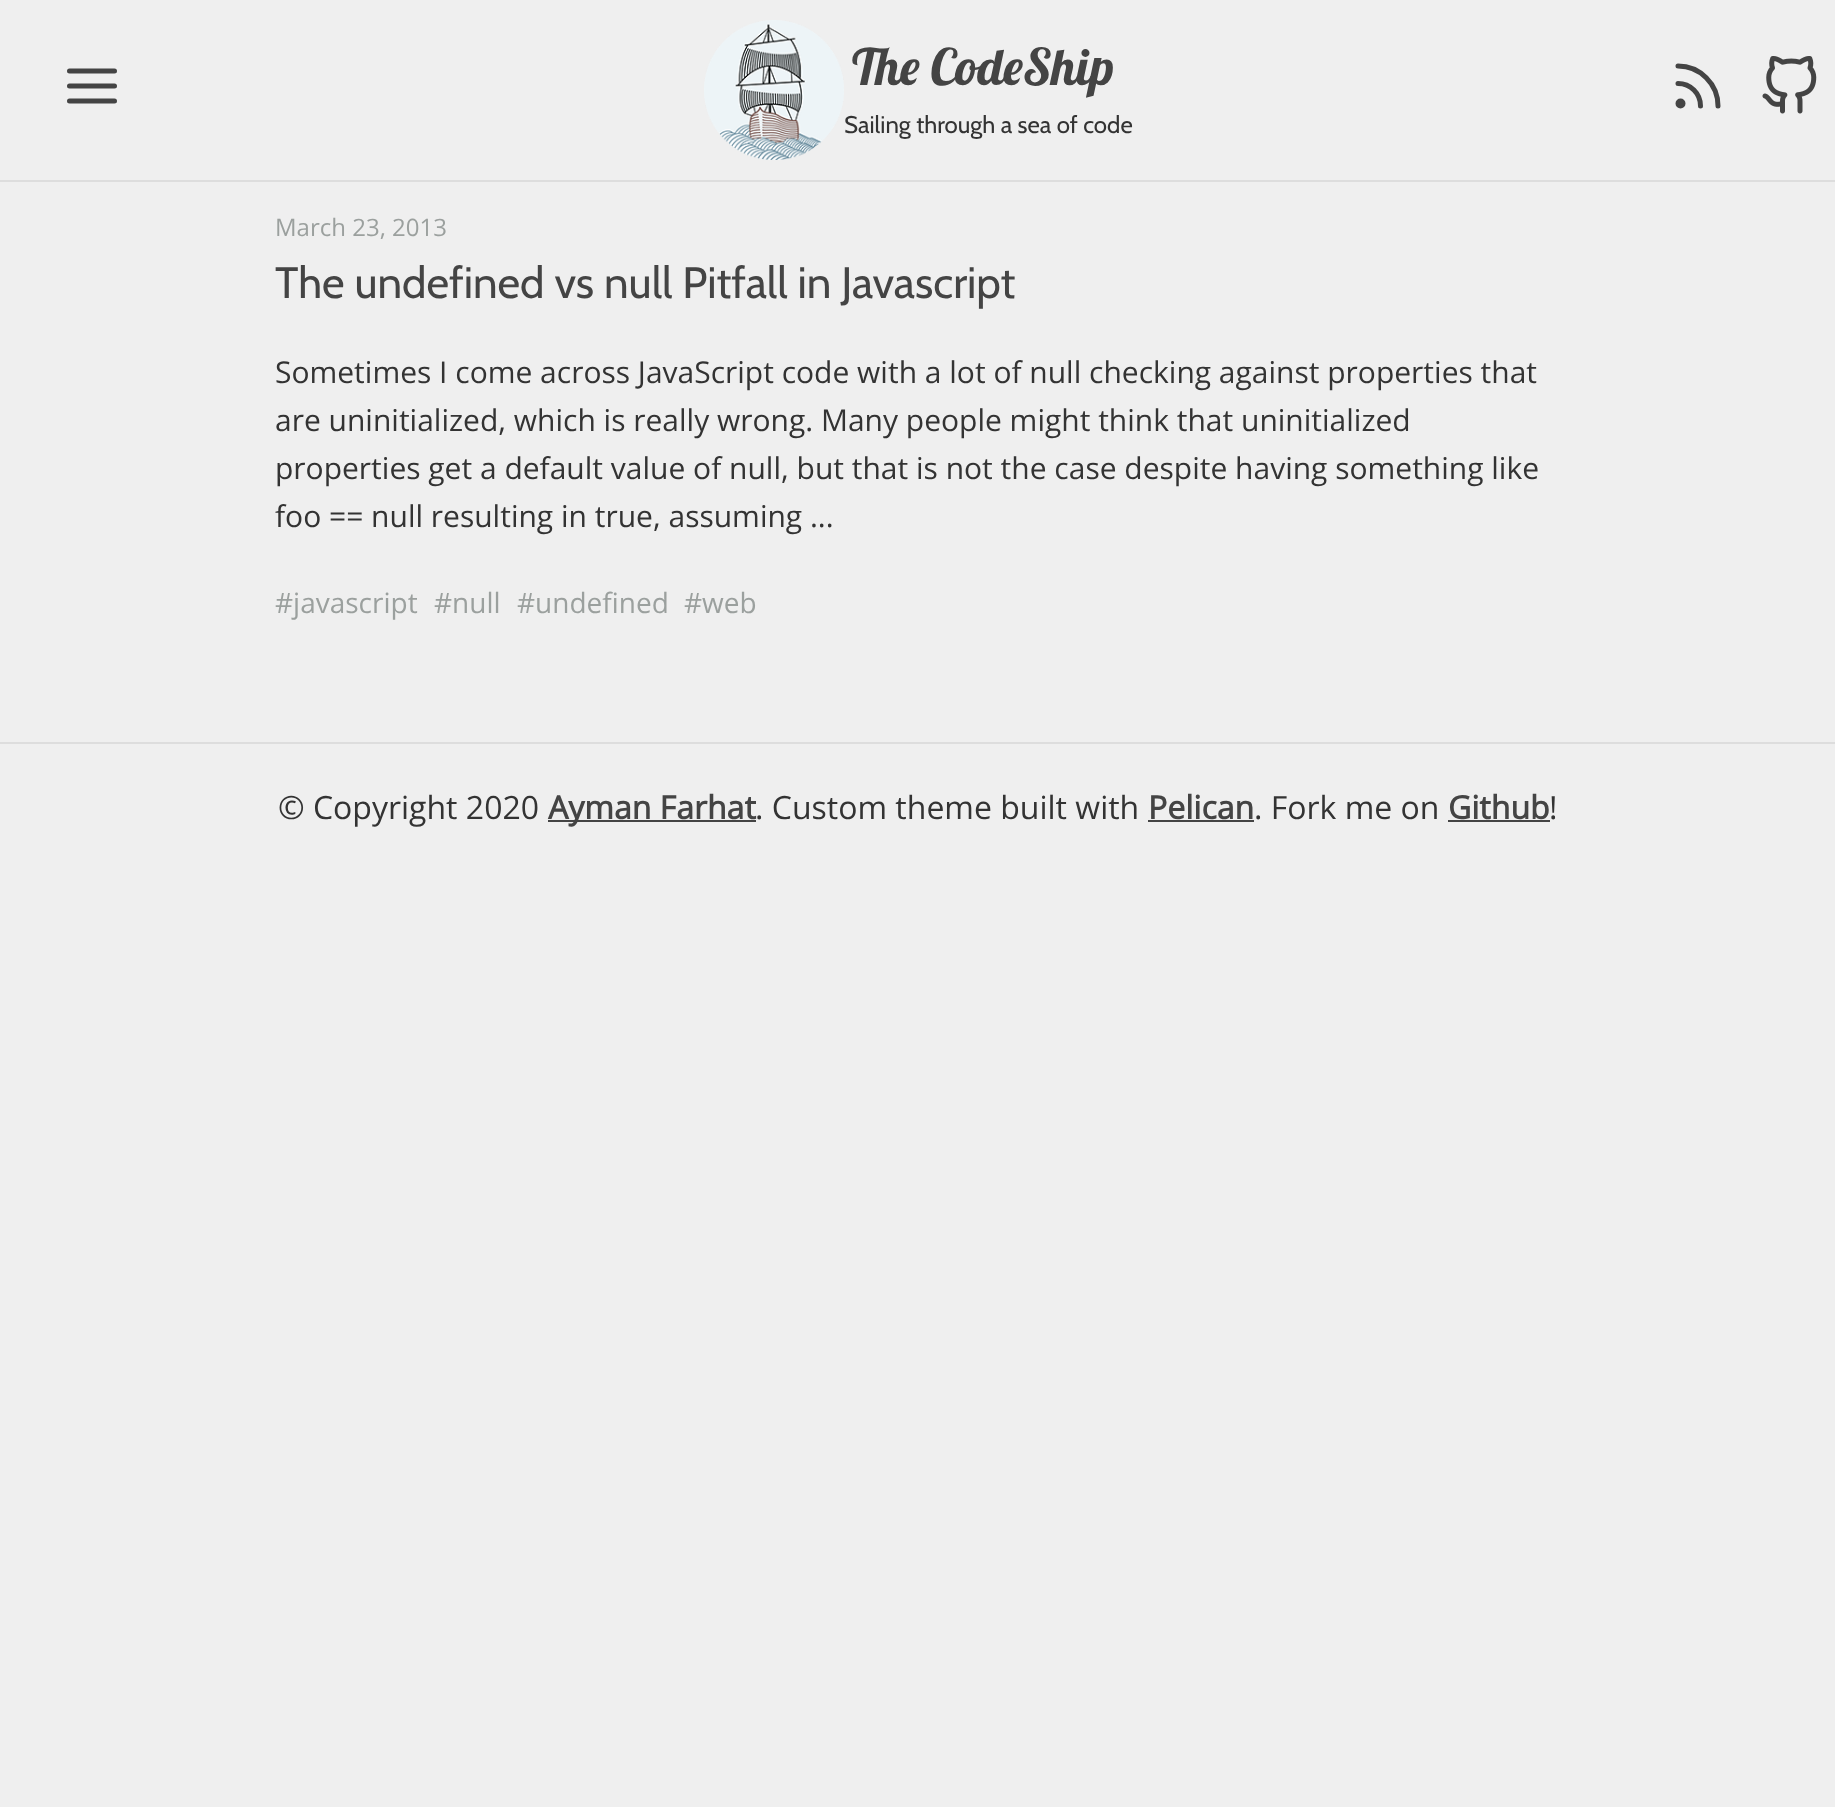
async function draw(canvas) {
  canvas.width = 1835
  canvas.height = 1807
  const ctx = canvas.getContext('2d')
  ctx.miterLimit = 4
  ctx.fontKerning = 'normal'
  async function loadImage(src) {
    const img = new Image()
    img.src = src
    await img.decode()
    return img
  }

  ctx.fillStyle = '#efefef'
  ctx.fillRect(0, 0, 1835, 1807)
  ctx.beginPath()
  ctx.moveTo(69.5, 86)
  ctx.lineTo(114.5, 86)
  ctx.moveTo(69.5, 71)
  ctx.lineTo(114.5, 71)
  ctx.moveTo(69.5, 101)
  ctx.lineTo(114.5, 101)
  ctx.strokeStyle = '#444'
  ctx.lineWidth = 5
  ctx.lineCap = 'round'
  ctx.lineJoin = 'round'
  ctx.stroke()
  ctx.drawImage(await loadImage('image0.png'), 704, 20, 140, 140)
  ctx.font = '50.5px Lobster'
  ctx.fillStyle = '#444'
  ctx.fillText('The CodeShip', 852, 85)
  ctx.font = '24px Cabin'
  ctx.fillStyle = '#333'
  ctx.fillText('Sailing through a sea of code', 844, 133)
  ctx.beginPath()
  ctx.moveTo(1678, 83.5)
  ctx.bezierCurveTo(1690.5, 83.5, 1700.5, 93.5, 1700.5, 106)
  ctx.moveTo(1678, 66)
  ctx.bezierCurveTo(1700, 66, 1718, 84, 1718, 106)
  ctx.stroke()
  ctx.beginPath()
  ctx.arc(1680.5, 103.5, 2.5, 0, 2 * Math.PI)
  ctx.stroke()
  ctx.drawImage(await loadImage('image1.png'), 1762, 56, 55, 58)
  ctx.fillStyle = '#ddd'
  ctx.fillRect(0, 180, 1835, 2)
  ctx.font = '24px Open Sans'
  ctx.fillStyle = '#9ba09e'
  ctx.fillText('March 23, 2013', 275, 236)
  ctx.font = '44px Cabin'
  ctx.fillStyle = '#444'
  ctx.fillText('The undefined vs null Pitfall in Javascript', 275, 298)
  ctx.font = '30px Open Sans'
  ctx.fillStyle = '#333'
  ctx.fillText('Sometimes I come across JavaScript code with a lot of null checking against properties that', 275, 383)
  ctx.fillText('are uninitialized, which is really wrong. Many people might think that uninitialized', 275, 431)
  ctx.fillText('properties get a default value of null, but that is not the case despite having something like', 275, 479)
  ctx.fillText('foo == null resulting in true, assuming ...', 275, 527)
  ctx.font = '28px Open Sans'
  ctx.fillStyle = '#9ba09e'
  ctx.fillText('#javascript', 275, 613)
  ctx.fillText('#null', 434, 613)
  ctx.fillText('#undefined', 517, 613)
  ctx.fillText('#web', 684, 613)
  ctx.fillStyle = '#ddd'
  ctx.fillRect(0, 742, 1835, 2)
  ctx.font = '32px Open Sans'
  ctx.fillStyle = '#333'
  ctx.fillText('© Copyright 2020', 278, 819)
  ctx.fillStyle = '#444'
  ctx.fillRect(548, 820, 208, 2)
  ctx.font = 'bold 32px Open Sans'
  ctx.fillText('Ayman Farhat', 548, 819)
  ctx.font = '32px Open Sans'
  ctx.fillStyle = '#333'
  ctx.fillText('. Custom theme built with', 755, 819)
  ctx.font = 'bold 32px Open Sans'
  ctx.fillStyle = '#444'
  ctx.fillText('Pelican', 1148, 819)
  ctx.fillRect(1148, 820, 106, 2)
  ctx.font = '32px Open Sans'
  ctx.fillStyle = '#333'
  ctx.fillText('. Fork me on', 1254, 819)
  ctx.font = 'bold 32px Open Sans'
  ctx.fillStyle = '#444'
  ctx.fillText('Github', 1448, 819)
  ctx.fillRect(1448, 820, 102, 2)
  ctx.font = '32px Open Sans'
  ctx.fillStyle = '#333'
  ctx.fillText('!', 1549, 819)
}

draw(document.querySelector('canvas'))
